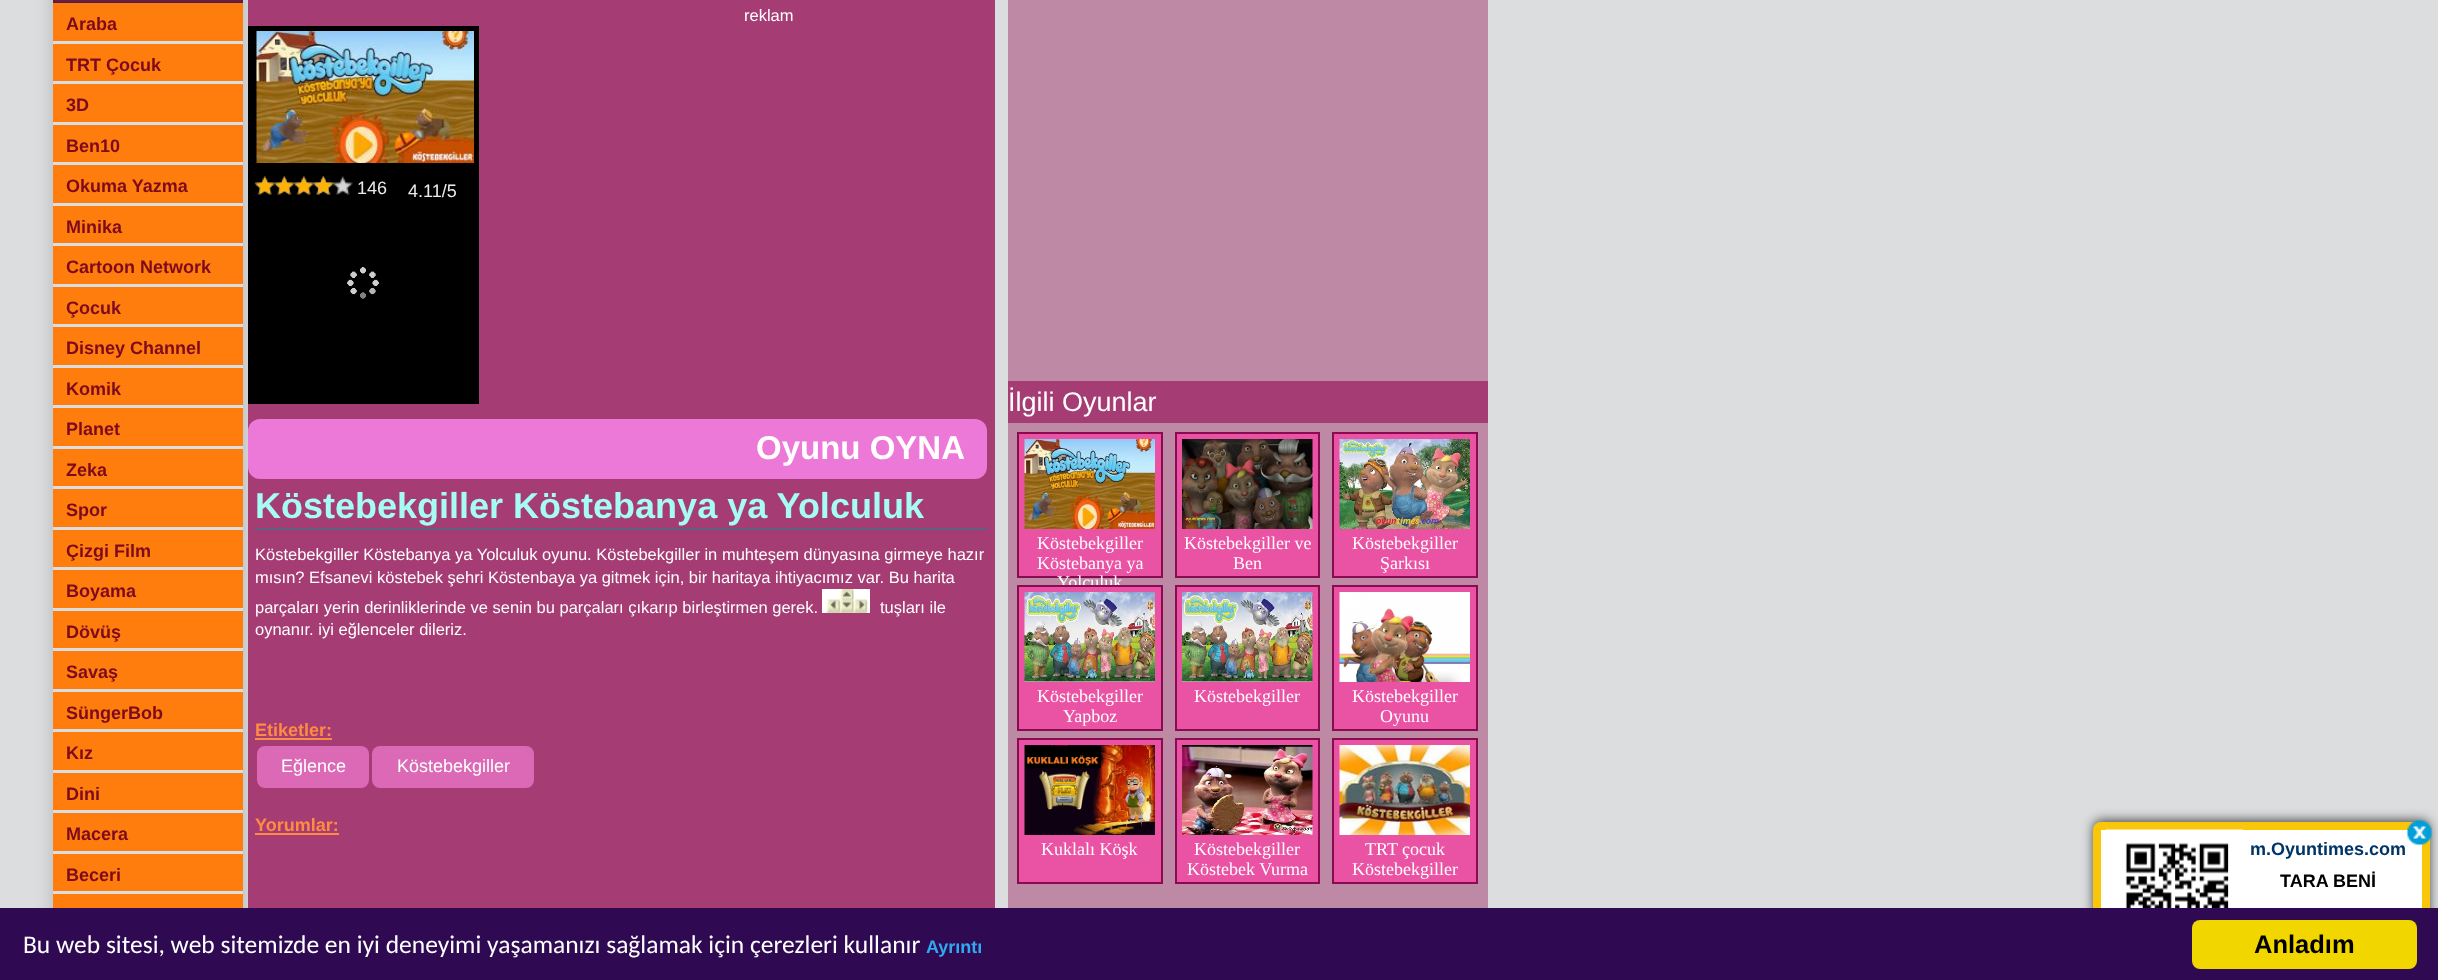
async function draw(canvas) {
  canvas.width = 2438
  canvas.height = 980
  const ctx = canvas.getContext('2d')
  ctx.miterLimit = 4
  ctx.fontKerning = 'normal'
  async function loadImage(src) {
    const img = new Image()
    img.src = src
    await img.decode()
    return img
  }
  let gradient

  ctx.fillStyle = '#dcddde'
  ctx.fillRect(0, 0, 2438, 980)
  ctx.fillStyle = '#0000002e'
  ctx.filter = 'blur(9px)'
  ctx.beginPath()
  ctx.rect(53, -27, 190, 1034)
  ctx.fill()
  ctx.filter = 'none'
  ctx.fillStyle = '#ff7d0d'
  ctx.fillRect(53, 3, 190, 905)
  gradient = ctx.createLinearGradient(148, -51, 148, 3)
  gradient.addColorStop(0, '#ef52a7')
  gradient.addColorStop(1, '#5f1c40')
  ctx.fillStyle = gradient
  ctx.fillRect(53, 0, 190, 3)
  ctx.fillStyle = '#dcddde'
  ctx.fillRect(53, 41, 190, 3)
  ctx.font = 'bold 18px Liberation Sans'
  ctx.fillStyle = '#7d0a1d'
  ctx.fillText('Araba', 66, 30)
  ctx.fillStyle = '#dcddde'
  ctx.fillRect(53, 81, 190, 3)
  ctx.fillStyle = '#7d0a1d'
  ctx.fillText('TRT Çocuk', 66, 71)
  ctx.fillStyle = '#dcddde'
  ctx.fillRect(53, 122, 190, 3)
  ctx.fillStyle = '#7d0a1d'
  ctx.fillText('3D', 66, 111)
  ctx.fillStyle = '#dcddde'
  ctx.fillRect(53, 162, 190, 3)
  ctx.fillStyle = '#7d0a1d'
  ctx.fillText('Ben10', 66, 152)
  ctx.fillStyle = '#dcddde'
  ctx.fillRect(53, 203, 190, 3)
  ctx.fillStyle = '#7d0a1d'
  ctx.fillText('Okuma Yazma', 66, 192)
  ctx.fillStyle = '#dcddde'
  ctx.fillRect(53, 243, 190, 3)
  ctx.fillStyle = '#7d0a1d'
  ctx.fillText('Minika', 66, 233)
  ctx.fillStyle = '#dcddde'
  ctx.fillRect(53, 284, 190, 3)
  ctx.fillStyle = '#7d0a1d'
  ctx.fillText('Cartoon Network', 66, 273)
  ctx.fillStyle = '#dcddde'
  ctx.fillRect(53, 324, 190, 3)
  ctx.fillStyle = '#7d0a1d'
  ctx.fillText('Çocuk', 66, 314)
  ctx.fillStyle = '#dcddde'
  ctx.fillRect(53, 365, 190, 3)
  ctx.fillStyle = '#7d0a1d'
  ctx.fillText('Disney Channel', 66, 354)
  ctx.fillStyle = '#dcddde'
  ctx.fillRect(53, 405, 190, 3)
  ctx.fillStyle = '#7d0a1d'
  ctx.fillText('Komik', 66, 395)
  ctx.fillStyle = '#dcddde'
  ctx.fillRect(53, 446, 190, 3)
  ctx.fillStyle = '#7d0a1d'
  ctx.fillText('Planet', 66, 435)
  ctx.fillStyle = '#dcddde'
  ctx.fillRect(53, 486, 190, 3)
  ctx.fillStyle = '#7d0a1d'
  ctx.fillText('Zeka', 66, 476)
  ctx.fillStyle = '#dcddde'
  ctx.fillRect(53, 527, 190, 3)
  ctx.fillStyle = '#7d0a1d'
  ctx.fillText('Spor', 66, 516)
  ctx.fillStyle = '#dcddde'
  ctx.fillRect(53, 567, 190, 3)
  ctx.fillStyle = '#7d0a1d'
  ctx.fillText('Çizgi Film', 66, 557)
  ctx.fillStyle = '#dcddde'
  ctx.fillRect(53, 608, 190, 3)
  ctx.fillStyle = '#7d0a1d'
  ctx.fillText('Boyama', 66, 597)
  ctx.fillStyle = '#dcddde'
  ctx.fillRect(53, 648, 190, 3)
  ctx.fillStyle = '#7d0a1d'
  ctx.fillText('Dövüş', 66, 638)
  ctx.fillStyle = '#dcddde'
  ctx.fillRect(53, 689, 190, 3)
  ctx.fillStyle = '#7d0a1d'
  ctx.fillText('Savaş', 66, 678)
  ctx.fillStyle = '#dcddde'
  ctx.fillRect(53, 729, 190, 3)
  ctx.fillStyle = '#7d0a1d'
  ctx.fillText('SüngerBob', 66, 719)
  ctx.fillStyle = '#dcddde'
  ctx.fillRect(53, 770, 190, 3)
  ctx.fillStyle = '#7d0a1d'
  ctx.fillText('Kız', 66, 759)
  ctx.fillStyle = '#dcddde'
  ctx.fillRect(53, 810, 190, 3)
  ctx.fillStyle = '#7d0a1d'
  ctx.fillText('Dini', 66, 800)
  ctx.fillStyle = '#dcddde'
  ctx.fillRect(53, 851, 190, 3)
  ctx.fillStyle = '#7d0a1d'
  ctx.fillText('Macera', 66, 840)
  ctx.fillStyle = '#dcddde'
  ctx.fillRect(53, 891, 190, 3)
  ctx.fillStyle = '#7d0a1d'
  ctx.fillText('Beceri', 66, 881)
  ctx.fillStyle = '#a53c74'
  ctx.fillRect(248, 0, 747, 908)
  ctx.font = '16.5px Liberation Sans'
  ctx.fillStyle = '#fff'
  ctx.fillText('reklam', 744, 21)
  ctx.fillStyle = '#000'
  ctx.fillRect(248, 26, 231, 378)
  ctx.drawImage(await loadImage('image0.png'), 256, 31, 218, 132)
  ctx.font = '18px Liberation Sans'
  ctx.fillStyle = '#ebebeb'
  ctx.fillText('146', 357, 194)
  ctx.drawImage(await loadImage('image1.png'), 254, 176, 99, 19)
  ctx.drawImage(await loadImage('image2.png'), 254, 176, 81, 19)
  ctx.fillText('4.11/5', 408, 197)
  ctx.drawImage(await loadImage('image3.png'), 347, 267, 32, 32)
  ctx.fillStyle = '#ec78d8'
  ctx.beginPath()
  ctx.roundRect(248, 419, 739, 60, 12)
  ctx.fill()
  ctx.font = 'bold 33px Liberation Sans'
  ctx.fillStyle = '#fff'
  ctx.fillText('Oyunu OYNA', 756, 459)
  ctx.fillStyle = '#5d6280'
  ctx.fillRect(255, 528, 732, 2)
  ctx.font = 'bold 36px Liberation Sans'
  ctx.fillStyle = '#a6fbf3'
  ctx.fillText('Köstebekgiller Köstebanya ya Yolculuk', 255, 518)
  ctx.font = '16.5px Liberation Sans'
  ctx.fillStyle = '#fff'
  ctx.fillText('Köstebekgiller Köstebanya ya Yolculuk oyunu. Köstebekgiller in muhteşem dünyasına girmeye hazır', 255, 560)
  ctx.fillText('mısın? Efsanevi köstebek şehri Köstenbaya ya gitmek için, bir haritaya ihtiyacımız var. Bu harita', 255, 583)
  ctx.fillText('parçaları yerin derinliklerinde ve senin bu parçaları çıkarıp birleştirmen gerek.', 255, 613)
  ctx.drawImage(await loadImage('image4.png'), 822, 589, 48, 24)
  ctx.fillText('tuşları ile', 880, 613)
  ctx.fillText('oynanır. iyi eğlenceler dileriz.', 255, 635)
  ctx.font = 'bold 18px Liberation Sans'
  ctx.fillStyle = '#ff8a41'
  ctx.fillText('Etiketler:', 255, 736)
  ctx.fillRect(255, 738, 77, 2)
  ctx.fillStyle = '#db69b6'
  ctx.beginPath()
  ctx.roundRect(257, 746, 112, 42, 8)
  ctx.fill()
  ctx.font = '18px Liberation Sans'
  ctx.fillStyle = '#fff'
  ctx.fillText('Eğlence', 281, 772)
  ctx.fillStyle = '#db69b6'
  ctx.beginPath()
  ctx.roundRect(372, 746, 162, 42, 8)
  ctx.fill()
  ctx.fillStyle = '#fff'
  ctx.fillText('Köstebekgiller', 397, 772)
  ctx.font = 'bold 18px Liberation Sans'
  ctx.fillStyle = '#ff8a41'
  ctx.fillText('Yorumlar:', 255, 831)
  ctx.fillRect(255, 833, 84, 2)
  ctx.fillStyle = '#bd89a5'
  ctx.fillRect(1008, 0, 480, 908)
  ctx.fillStyle = '#a53c74'
  ctx.fillRect(1008, 381, 480, 42)
  ctx.font = '27px Liberation Sans'
  ctx.fillStyle = '#fff'
  ctx.fillText('İlgili Oyunlar', 1008, 411)
  ctx.fillStyle = '#ea52a4'
  ctx.beginPath()
  ctx.rect(1018, 433, 144, 144)
  ctx.fill()
  ctx.strokeStyle = '#8a0b50'
  ctx.lineWidth = 2
  ctx.stroke()
  ctx.drawImage(await loadImage('image5.png'), 1024, 439, 131, 90)
  ctx.font = '18px Liberation Serif'
  ctx.fillStyle = '#fff'
  ctx.fillText('Köstebekgiller', 1037, 549)
  ctx.fillText('Köstebanya ya', 1037, 569)
  ctx.fillText('Yolculuk', 1057, 588)
  ctx.fillStyle = '#ea52a4'
  ctx.beginPath()
  ctx.rect(1176, 433, 143, 144)
  ctx.fill()
  ctx.stroke()
  ctx.drawImage(await loadImage('image6.png'), 1182, 439, 131, 90)
  ctx.fillStyle = '#fff'
  ctx.fillText('Köstebekgiller ve', 1184, 549)
  ctx.fillText('Ben', 1233, 569)
  ctx.fillStyle = '#ea52a4'
  ctx.beginPath()
  ctx.rect(1333, 433, 144, 144)
  ctx.fill()
  ctx.stroke()
  ctx.drawImage(await loadImage('image7.png'), 1339, 439, 131, 90)
  ctx.fillStyle = '#fff'
  ctx.fillText('Köstebekgiller', 1352, 549)
  ctx.fillText('Şarkısı', 1380, 569)
  ctx.fillStyle = '#ea52a4'
  ctx.beginPath()
  ctx.rect(1018, 586, 144, 144)
  ctx.fill()
  ctx.stroke()
  ctx.drawImage(await loadImage('image8.png'), 1024, 592, 131, 90)
  ctx.fillStyle = '#fff'
  ctx.fillText('Köstebekgiller', 1037, 702)
  ctx.fillText('Yapboz', 1063, 722)
  ctx.fillStyle = '#ea52a4'
  ctx.beginPath()
  ctx.rect(1176, 586, 143, 144)
  ctx.fill()
  ctx.stroke()
  ctx.drawImage(await loadImage('image9.png'), 1182, 592, 131, 90)
  ctx.fillStyle = '#fff'
  ctx.fillText('Köstebekgiller', 1194, 702)
  ctx.fillStyle = '#ea52a4'
  ctx.beginPath()
  ctx.rect(1333, 586, 144, 144)
  ctx.fill()
  ctx.stroke()
  ctx.drawImage(await loadImage('image10.png'), 1339, 592, 131, 90)
  ctx.fillStyle = '#fff'
  ctx.fillText('Köstebekgiller', 1352, 702)
  ctx.fillText('Oyunu', 1380, 722)
  ctx.fillStyle = '#ea52a4'
  ctx.beginPath()
  ctx.rect(1018, 739, 144, 144)
  ctx.fill()
  ctx.stroke()
  ctx.drawImage(await loadImage('image11.png'), 1024, 745, 131, 90)
  ctx.fillStyle = '#fff'
  ctx.fillText('Kuklalı Köşk', 1041, 855)
  ctx.fillStyle = '#ea52a4'
  ctx.beginPath()
  ctx.rect(1176, 739, 143, 144)
  ctx.fill()
  ctx.stroke()
  ctx.drawImage(await loadImage('image12.png'), 1182, 745, 131, 90)
  ctx.fillStyle = '#fff'
  ctx.fillText('Köstebekgiller', 1194, 855)
  ctx.fillText('Köstebek Vurma', 1187, 875)
  ctx.fillStyle = '#ea52a4'
  ctx.beginPath()
  ctx.rect(1333, 739, 144, 144)
  ctx.fill()
  ctx.stroke()
  ctx.drawImage(await loadImage('image13.png'), 1339, 745, 131, 90)
  ctx.fillStyle = '#fff'
  ctx.fillText('TRT çocuk', 1365, 855)
  ctx.fillText('Köstebekgiller', 1352, 875)
  ctx.fillStyle = '#000000c2'
  ctx.filter = 'blur(6px)'
  ctx.beginPath()
  ctx.roundRect(2094, 821, 335, 142, 6)
  ctx.fill()
  ctx.filter = 'none'
  ctx.fillStyle = '#fff'
  ctx.beginPath()
  ctx.roundRect(2097, 826, 329, 138, 4)
  ctx.fill()
  ctx.strokeStyle = '#fac609'
  ctx.lineWidth = 8
  ctx.stroke()
  ctx.drawImage(await loadImage('image14.png'), 2106, 829, 137, 79)
  ctx.font = 'bold 18px Liberation Sans'
  ctx.fillStyle = '#036'
  ctx.fillText('m.Oyuntimes.com', 2250, 855)
  ctx.fillStyle = '#000'
  ctx.fillText('TARA BENİ', 2280, 887)
  ctx.drawImage(await loadImage('image15.png'), 2407, 820, 25, 25)
  ctx.fillStyle = '#2f0a53'
  ctx.fillRect(0, 908, 2438, 72)
  ctx.font = '25.5px Carlito'
  ctx.fillStyle = '#fff'
  ctx.fillText('Bu web sitesi, web sitemizde en iyi deneyimi yaşamanızı sağlamak için çerezleri kullanır', 23, 953)
  ctx.font = 'bold 18px Liberation Sans'
  ctx.fillStyle = '#31a8f0'
  ctx.fillText('Ayrıntı', 926, 953)
  ctx.fillStyle = '#f1d600'
  ctx.beginPath()
  ctx.roundRect(2192, 920, 225, 49, 8)
  ctx.fill()
  ctx.font = 'bold 25.5px Liberation Sans'
  ctx.fillStyle = '#000'
  ctx.fillText('Anladım', 2254, 953)
}

draw(document.querySelector('canvas'))
